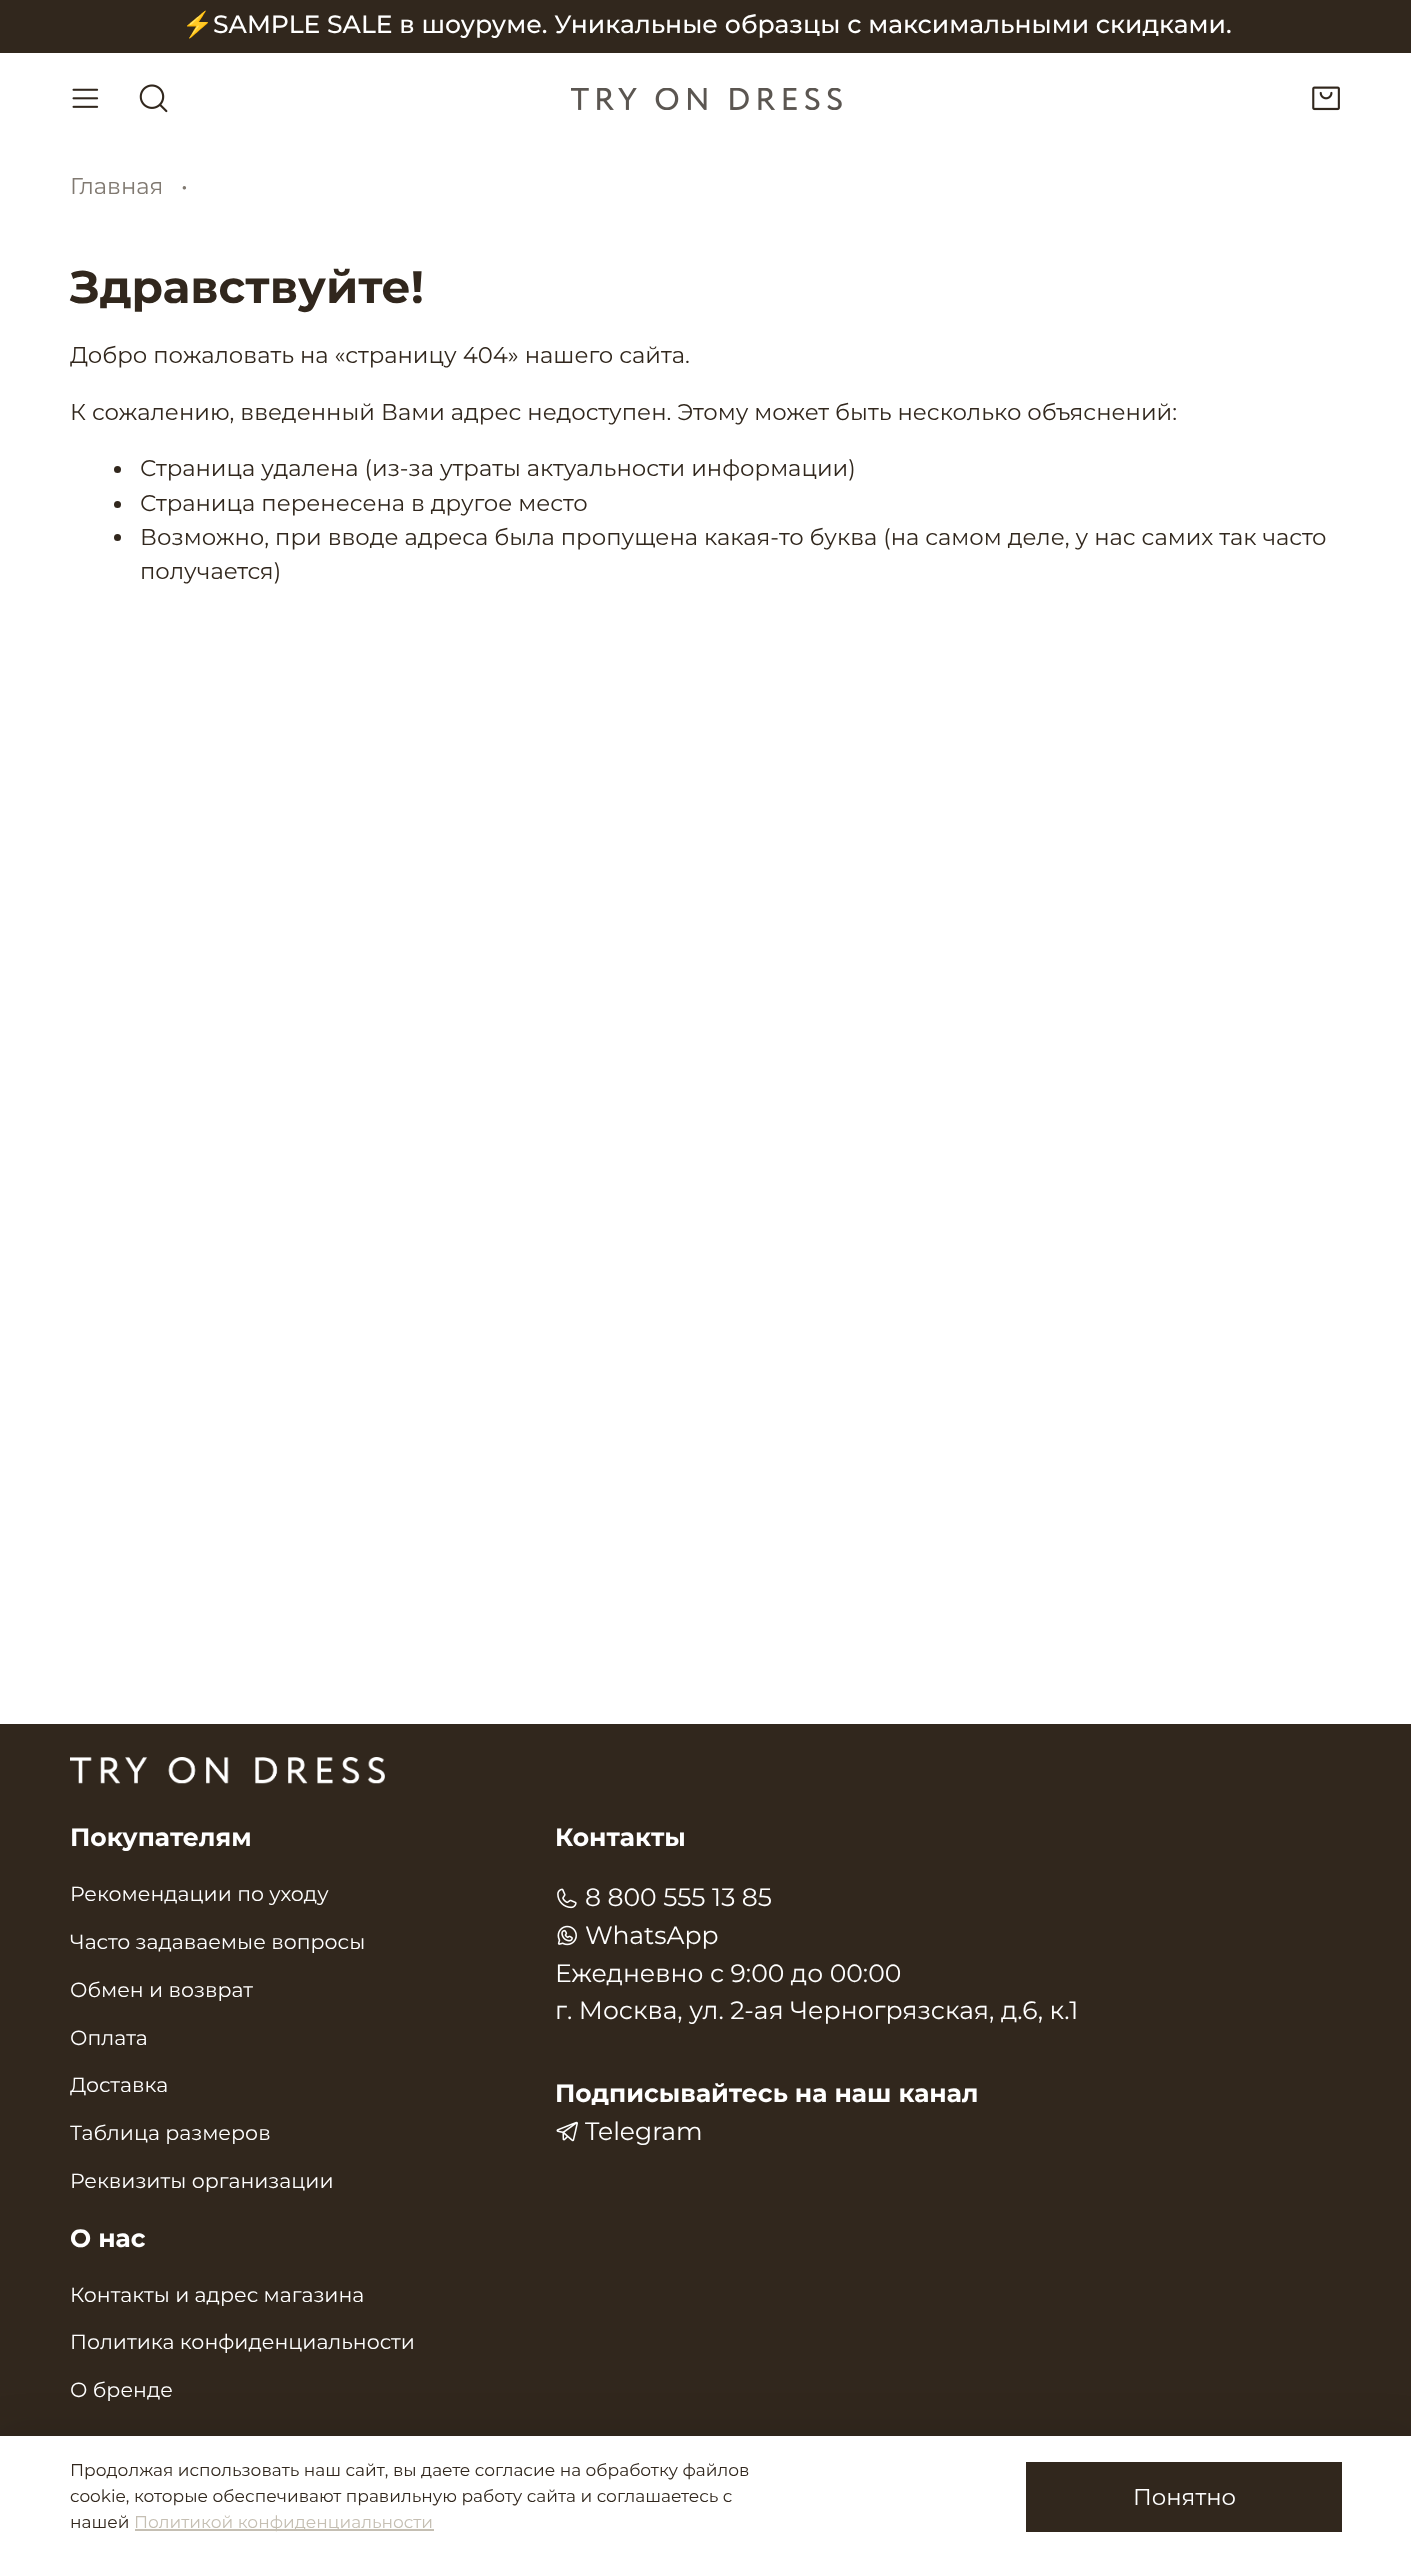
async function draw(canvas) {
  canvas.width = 1411
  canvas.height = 2557
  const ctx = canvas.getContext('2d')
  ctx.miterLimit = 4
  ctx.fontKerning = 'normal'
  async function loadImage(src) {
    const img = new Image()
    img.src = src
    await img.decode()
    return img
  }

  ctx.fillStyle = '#fff'
  ctx.fillRect(0, 0, 1411, 2557)
  ctx.fillStyle = '#31271d'
  ctx.fillRect(0, 0, 1411, 53)
  ctx.font = '25.05px Noto Color Emoji'
  ctx.fillStyle = '#fff'
  ctx.fillText('⚡️', 182, 33)
  ctx.font = '500 25.05px Montserrat'
  ctx.fillText('SAMPLE SALE в шоуруме. Уникальные образцы с максимальными скидками.', 213, 33)
  ctx.drawImage(await loadImage('image0.png'), 72, 88, 27, 20)
  ctx.drawImage(await loadImage('image1.png'), 139, 84, 29, 29)
  ctx.drawImage(await loadImage('image2.png'), 571, 88, 271, 22)
  ctx.drawImage(await loadImage('image3.png'), 1312, 86, 28, 25)
  ctx.font = '22.75px Montserrat'
  ctx.fillStyle = '#807971'
  ctx.fillText('Главная', 70, 194)
  ctx.fillText('•', 181, 194)
  ctx.font = 'bold 45.5px Montserrat'
  ctx.fillStyle = '#31271d'
  ctx.fillText('Здравствуйте!', 70, 303)
  ctx.font = '22.75px Montserrat'
  ctx.fillText('Добро пожаловать на «страницу 404» нашего сайта.', 70, 363)
  ctx.fillText('К сожалению, введенный Вами адрес недоступен. Этому может быть несколько объяснений:', 70, 420)
  ctx.beginPath()
  ctx.arc(117.5, 469.5, 3.5, 0, 2 * Math.PI)
  ctx.fill()
  ctx.fillText('Страница удалена (из-за утраты актуальности информации)', 140, 476)
  ctx.beginPath()
  ctx.arc(117.5, 504.5, 3.5, 0, 2 * Math.PI)
  ctx.fill()
  ctx.fillText('Страница перенесена в другое место', 140, 511)
  ctx.beginPath()
  ctx.arc(117.5, 537.5, 3.5, 0, 2 * Math.PI)
  ctx.fill()
  ctx.fillText('Возможно, при вводе адреса была пропущена какая-то буква (на самом деле, у нас самих так часто', 140, 545)
  ctx.fillText('получается)', 140, 579)
  ctx.fillRect(0, 1724, 1411, 712)
  ctx.drawImage(await loadImage('image4.png'), 70, 1757, 315, 27)
  ctx.font = 'bold 25.05px Montserrat'
  ctx.fillStyle = '#fff'
  ctx.fillText('Покупателям', 70, 1846)
  ctx.font = '20.5px Montserrat'
  ctx.fillText('Рекомендации по уходу', 70, 1901)
  ctx.fillText('Часто задаваемые вопросы', 70, 1949)
  ctx.fillText('Обмен и возврат', 70, 1997)
  ctx.fillText('Оплата', 70, 2045)
  ctx.fillText('Доставка', 70, 2092)
  ctx.fillText('Таблица размеров', 70, 2140)
  ctx.fillText('Реквизиты организации', 70, 2188)
  ctx.font = 'bold 25.05px Montserrat'
  ctx.fillText('О нас', 70, 2247)
  ctx.font = '20.5px Montserrat'
  ctx.fillText('Контакты и адрес магазина', 70, 2302)
  ctx.fillText('Политика конфиденциальности', 70, 2349)
  ctx.fillText('О бренде', 70, 2397)
  ctx.font = 'bold 25.05px Montserrat'
  ctx.fillText('Контакты', 555, 1846)
  ctx.drawImage(await loadImage('image5.png'), 557, 1888, 20, 21)
  ctx.font = '25.05px Montserrat'
  ctx.fillText('8 800 555 13 85', 585, 1906)
  ctx.drawImage(await loadImage('image6.png'), 557, 1925, 20, 21)
  ctx.fillText('WhatsApp', 585, 1944)
  ctx.fillText('Ежедневно с 9:00 до 00:00', 555, 1982)
  ctx.fillText('г. Москва, ул. 2-ая Черногрязская, д.6, к.1', 555, 2019)
  ctx.font = 'bold 25.05px Montserrat'
  ctx.fillText('Подписывайтесь на наш канал', 555, 2102)
  ctx.drawImage(await loadImage('image7.png'), 556, 2121, 22, 21)
  ctx.font = '25.05px Montserrat'
  ctx.fillText('Telegram', 585, 2140)
  ctx.fillStyle = '#00000017'
  ctx.filter = 'blur(20px)'
  ctx.beginPath()
  ctx.rect(-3, 2431, 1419, 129)
  ctx.fill()
  ctx.filter = 'none'
  ctx.fillStyle = '#fff'
  ctx.fillRect(0, 2436, 1411, 121)
  ctx.font = '17.05px Montserrat'
  ctx.fillStyle = '#31271d'
  ctx.fillText('Продолжая использовать наш сайт, вы даете согласие на обработку файлов', 70, 2476)
  ctx.fillText('cookie, которые обеспечивают правильную работу сайта и соглашаетесь с', 70, 2502)
  ctx.fillText('нашей', 70, 2528)
  ctx.fillStyle = '#c5bfb3'
  ctx.fillRect(135, 2529, 299, 2)
  ctx.fillText('Политикой конфиденциальности', 134, 2528)
  ctx.fillStyle = '#31271d'
  ctx.fillRect(1026, 2462, 316, 70)
  ctx.font = '22.75px Montserrat'
  ctx.fillStyle = '#fff'
  ctx.fillText('Понятно', 1133, 2505)
}

draw(document.querySelector('canvas'))
